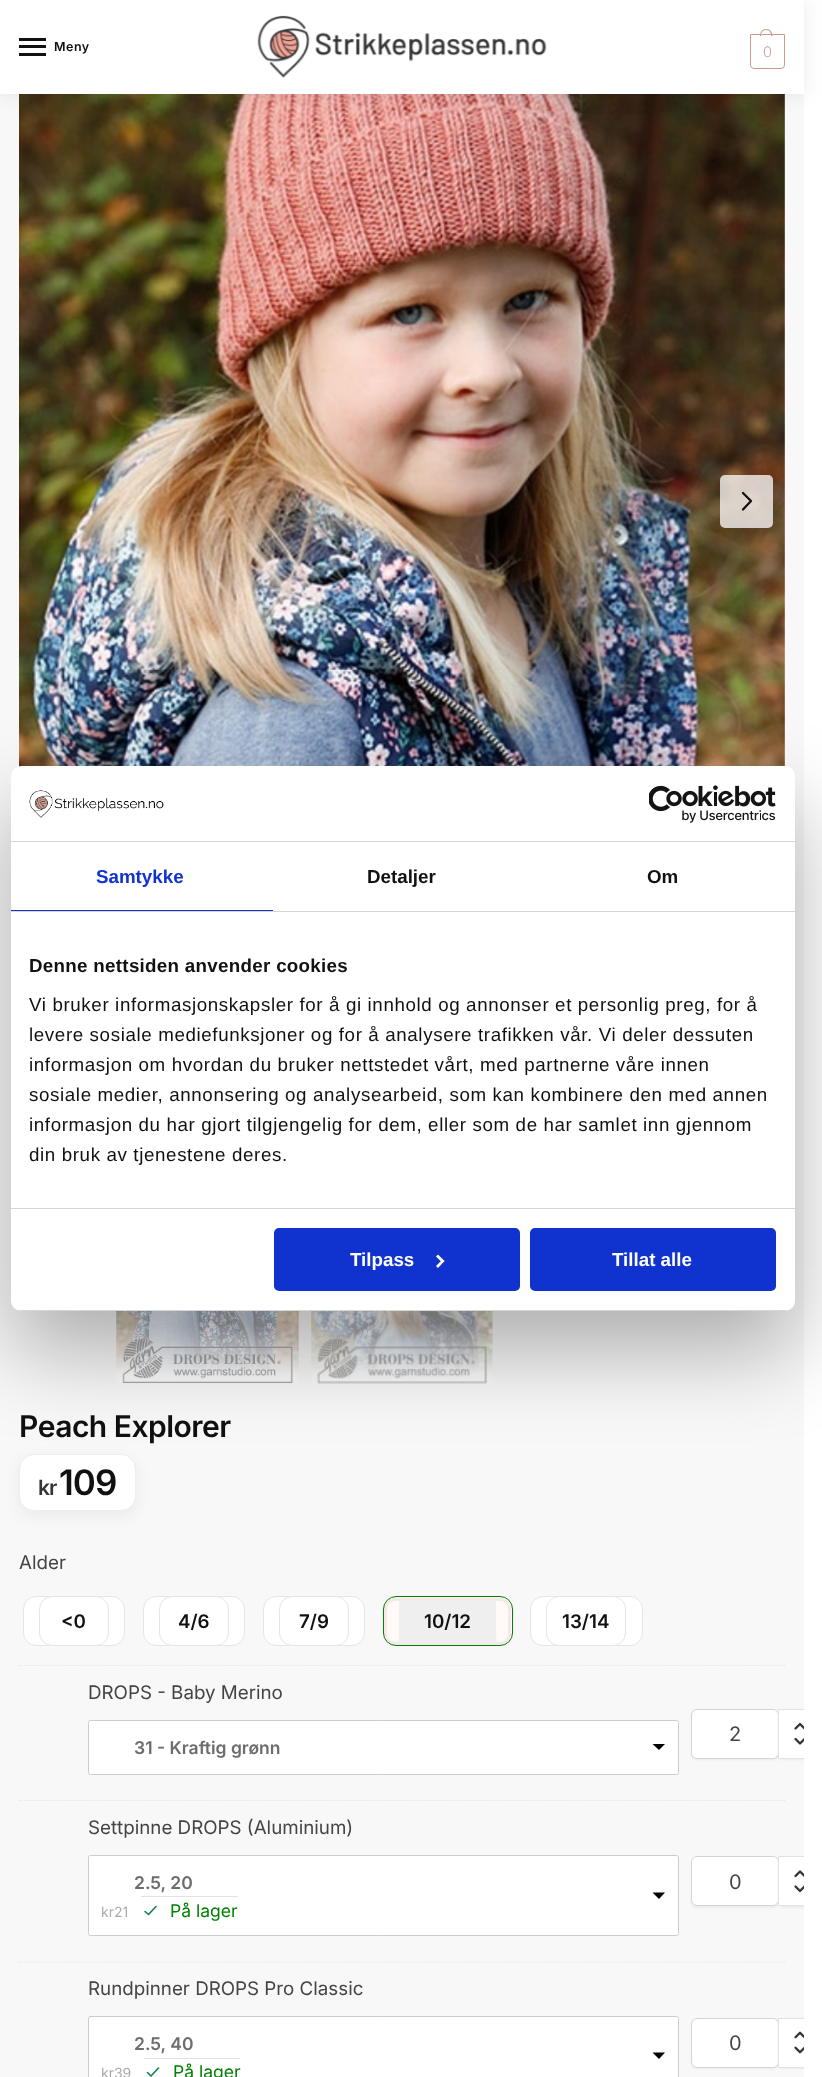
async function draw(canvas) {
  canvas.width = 822
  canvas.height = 2077
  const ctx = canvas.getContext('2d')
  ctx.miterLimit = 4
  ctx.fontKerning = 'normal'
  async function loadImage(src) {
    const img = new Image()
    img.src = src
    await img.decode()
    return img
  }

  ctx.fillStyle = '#fff'
  ctx.fillRect(0, 0, 822, 2077)
  ctx.fillStyle = '#f8f8f8'
  ctx.fillRect(0, 94, 804, 1983)
  ctx.drawImage(await loadImage('image1.png'), 19, 94, 766, 673)
  ctx.fillStyle = '#00000014'
  ctx.filter = 'blur(9.5px)'
  ctx.beginPath()
  ctx.rect(0, 1, 804, 94)
  ctx.fill()
  ctx.filter = 'none'
  ctx.fillStyle = '#fff'
  ctx.fillRect(0, 0, 804, 94)
  ctx.fillStyle = '#111'
  ctx.fillRect(19, 38, 27, 3)
  ctx.fillRect(19, 45, 27, 3)
  ctx.letterSpacing = '0.5px'
  ctx.font = '600 12.5px Inter'
  ctx.fillText('Meny', 54, 51)
  ctx.fillRect(19, 53, 27, 3)
  ctx.drawImage(await loadImage('image0.png'), 257, 15, 290, 63)
  ctx.beginPath()
  ctx.roundRect(750.5, 34.5, 34, 34, [0, 0, 3.5, 3.5])
  ctx.strokeStyle = '#ca9a8f'
  ctx.stroke()
  ctx.fillStyle = '#ca9a8f'
  ctx.beginPath()
  ctx.moveTo(766, 29)
  ctx.bezierCurveTo(770.5, 29, 772.5, 32.5, 772.5, 36)
  ctx.lineTo(760, 36)
  ctx.bezierCurveTo(760, 32.5, 762, 29, 766, 29)
  ctx.closePath()
  ctx.moveTo(766, 30)
  ctx.bezierCurveTo(770, 30, 771, 33, 771, 36)
  ctx.lineTo(761, 36)
  ctx.bezierCurveTo(761, 33, 762.5, 30, 766, 30)
  ctx.closePath()
  ctx.fill('evenodd')
  ctx.letterSpacing = '-1px'
  ctx.font = '300 15px IBM Plex Sans'
  ctx.fillText('0', 763, 57)
  ctx.fillStyle = '#ffffffbf'
  ctx.beginPath()
  ctx.roundRect(720, 475, 53, 53, 5)
  ctx.fill()
  ctx.beginPath()
  ctx.moveTo(743, 509.5)
  ctx.lineTo(751, 501)
  ctx.lineTo(743, 493)
  ctx.strokeStyle = '#111'
  ctx.lineWidth = 2.3
  ctx.lineCap = 'round'
  ctx.lineJoin = 'round'
  ctx.stroke()
  ctx.drawImage(await loadImage('image2.png'), 116, 1311, 183, 72)
  ctx.drawImage(await loadImage('image3.png'), 311, 1311, 182, 73)
  ctx.letterSpacing = '-0.5px'
  ctx.font = '600 30px Inter'
  ctx.fillStyle = '#111'
  ctx.fillText('Peach Explorer', 19, 1437)
  ctx.fillStyle = '#0000000f'
  ctx.filter = 'blur(7.5px)'
  ctx.beginPath()
  ctx.roundRect(19, 1459, 117, 57, 15)
  ctx.fill()
  ctx.filter = 'none'
  ctx.fillStyle = '#fff'
  ctx.beginPath()
  ctx.roundRect(19.5, 1454.5, 116, 56, 14.5)
  ctx.fill()
  ctx.strokeStyle = '#eee'
  ctx.lineWidth = 1
  ctx.lineJoin = 'miter'
  ctx.stroke()
  ctx.letterSpacing = '-1px'
  ctx.font = '600 21px Inter'
  ctx.fillStyle = '#353535'
  ctx.fillText('kr', 38, 1495)
  ctx.font = '600 35px Inter'
  ctx.fillStyle = '#111'
  ctx.fillText('109', 59, 1495)
  ctx.letterSpacing = '0px'
  ctx.font = '18.75px Inter'
  ctx.fillStyle = '#444'
  ctx.fillText('Alder', 19, 1569)
  ctx.fillStyle = '#fff'
  ctx.beginPath()
  ctx.roundRect(23.5, 1596.5, 101, 49, 12.5)
  ctx.fill()
  ctx.strokeStyle = '#e6e6e6'
  ctx.stroke()
  ctx.beginPath()
  ctx.roundRect(39.5, 1596.5, 69, 49, 12.5)
  ctx.fill()
  ctx.stroke()
  ctx.font = '600 18.75px Inter'
  ctx.fillStyle = '#111'
  ctx.fillText('<0', 61, 1628)
  ctx.fillStyle = '#fff'
  ctx.beginPath()
  ctx.roundRect(143.5, 1596.5, 101, 49, 12.5)
  ctx.fill()
  ctx.stroke()
  ctx.beginPath()
  ctx.roundRect(159.5, 1596.5, 69, 49, 12.5)
  ctx.fill()
  ctx.stroke()
  ctx.fillStyle = '#111'
  ctx.fillText('4/6', 178, 1628)
  ctx.fillStyle = '#fff'
  ctx.beginPath()
  ctx.roundRect(263.5, 1596.5, 101, 49, 12.5)
  ctx.fill()
  ctx.stroke()
  ctx.beginPath()
  ctx.roundRect(279.5, 1596.5, 69, 49, 12.5)
  ctx.fill()
  ctx.stroke()
  ctx.fillStyle = '#111'
  ctx.fillText('7/9', 299, 1628)
  ctx.fillStyle = '#fff9f8'
  ctx.beginPath()
  ctx.roundRect(383, 1596, 130, 50, 13)
  ctx.fill()
  ctx.beginPath()
  ctx.roundRect(385.5, 1599.5, 124, 44, 9.5)
  ctx.strokeStyle = '#f5e8e5'
  ctx.lineWidth = 3
  ctx.stroke()
  ctx.beginPath()
  ctx.roundRect(383.5, 1596.5, 129, 49, 12.5)
  ctx.strokeStyle = '#008000'
  ctx.lineWidth = 1
  ctx.stroke()
  ctx.fillStyle = '#efefef'
  ctx.beginPath()
  ctx.roundRect(399, 1600, 97, 43, 2.5)
  ctx.fill()
  ctx.fillStyle = '#111'
  ctx.fillText('10/12', 424, 1628)
  ctx.fillStyle = '#fff'
  ctx.beginPath()
  ctx.roundRect(530.5, 1596.5, 112, 49, 12.5)
  ctx.fill()
  ctx.strokeStyle = '#e6e6e6'
  ctx.stroke()
  ctx.beginPath()
  ctx.roundRect(546.5, 1596.5, 79, 49, 12.5)
  ctx.fill()
  ctx.stroke()
  ctx.fillStyle = '#111'
  ctx.fillText('13/14', 562, 1628)
  ctx.beginPath()
  ctx.moveTo(19, 1665.5)
  ctx.lineTo(785, 1665.5)
  ctx.strokeStyle = '#e5e5e5'
  ctx.lineWidth = 1.2
  ctx.lineCap = 'butt'
  ctx.setLineDash([1.25, 1.25])
  ctx.stroke()
  ctx.beginPath()
  ctx.moveTo(19, 1800.5)
  ctx.lineTo(785, 1800.5)
  ctx.stroke()
  ctx.font = '18.75px Inter'
  ctx.fillStyle = '#444'
  ctx.fillText('DROPS - Baby Merino', 88, 1699)
  ctx.fillStyle = '#fff'
  ctx.beginPath()
  ctx.roundRect(88.5, 1720.5, 590, 54, 2)
  ctx.fill()
  ctx.strokeStyle = '#ccc'
  ctx.lineWidth = 1
  ctx.setLineDash([])
  ctx.stroke()
  ctx.font = '600 17.5px Inter'
  ctx.fillStyle = '#6d6d6d'
  ctx.fillText('31 - Kraftig grønn', 134, 1754)
  ctx.fillStyle = '#000'
  ctx.beginPath()
  ctx.moveTo(652.5, 1744)
  ctx.lineTo(665, 1744)
  ctx.lineTo(659, 1750)
  ctx.closePath()
  ctx.fill()
  ctx.fillStyle = '#0000000d'
  ctx.filter = 'blur(1px)'
  ctx.beginPath()
  ctx.roundRect(691, 1710, 88, 50, 6)
  ctx.fill()
  ctx.filter = 'none'
  ctx.fillStyle = '#fff'
  ctx.beginPath()
  ctx.roundRect(691.5, 1709.5, 87, 49, 5.5)
  ctx.fill()
  ctx.strokeStyle = '#d2d6dc'
  ctx.stroke()
  ctx.font = '20px Inter'
  ctx.fillStyle = '#444'
  ctx.fillText('2', 729, 1741)
  ctx.save()
  ctx.beginPath()
  ctx.rect(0, 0, 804, 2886)
  ctx.clip()
  ctx.fillStyle = '#0000000d'
  ctx.filter = 'blur(1px)'
  ctx.beginPath()
  ctx.roundRect(778, 1710, 43, 50, 5)
  ctx.fill()
  ctx.filter = 'none'
  ctx.restore()
  ctx.fillStyle = '#fff'
  ctx.fillRect(779, 1710, 25, 48)
  ctx.save()
  ctx.beginPath()
  ctx.rect(0, 0, 804, 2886)
  ctx.clip()
  ctx.beginPath()
  ctx.roundRect(778.5, 1709.5, 42, 49, [0, 4.5, 4.5, 0])
  ctx.strokeStyle = '#e2e2e2'
  ctx.stroke()
  ctx.restore()
  ctx.drawImage(await loadImage('image4.png'), 794, 1722, 10, 8)
  ctx.drawImage(await loadImage('image5.png'), 794, 1737, 10, 8)
  ctx.beginPath()
  ctx.moveTo(19, 1962)
  ctx.lineTo(785, 1962)
  ctx.strokeStyle = '#e5e5e5'
  ctx.lineWidth = 1.2
  ctx.setLineDash([1.25, 1.25])
  ctx.stroke()
  ctx.font = '18.75px Inter'
  ctx.fillStyle = '#444'
  ctx.fillText('Settpinne DROPS (Aluminium)', 88, 1834)
  ctx.fillStyle = '#fff'
  ctx.beginPath()
  ctx.roundRect(88.5, 1855.5, 590, 80, 2)
  ctx.fill()
  ctx.strokeStyle = '#ccc'
  ctx.lineWidth = 1
  ctx.setLineDash([])
  ctx.stroke()
  ctx.font = '600 17.5px Inter'
  ctx.fillStyle = '#6d6d6d'
  ctx.fillText('2.5, 20', 134, 1889)
  ctx.font = '14px Inter'
  ctx.fillStyle = '#aaa'
  ctx.fillText('kr21', 101, 1917)
  ctx.fillStyle = '#e2e2e2'
  ctx.fillRect(141, 1896, 97, 1)
  ctx.beginPath()
  ctx.moveTo(145, 1911.5)
  ctx.lineTo(148.5, 1914.5)
  ctx.lineTo(156, 1906.5)
  ctx.strokeStyle = '#0f834d'
  ctx.lineWidth = 1.6
  ctx.lineCap = 'round'
  ctx.lineJoin = 'round'
  ctx.stroke()
  ctx.font = '17.5px Inter'
  ctx.fillStyle = '#008000'
  ctx.fillText('På lager', 170, 1917)
  ctx.fillStyle = '#000'
  ctx.beginPath()
  ctx.moveTo(652.5, 1892.5)
  ctx.lineTo(665, 1892.5)
  ctx.lineTo(659, 1899)
  ctx.closePath()
  ctx.fill()
  ctx.fillStyle = '#0000000d'
  ctx.filter = 'blur(1px)'
  ctx.beginPath()
  ctx.roundRect(691, 1858, 88, 50, 6)
  ctx.fill()
  ctx.filter = 'none'
  ctx.fillStyle = '#fff'
  ctx.beginPath()
  ctx.roundRect(691.5, 1856.5, 87, 49, 5.5)
  ctx.fill()
  ctx.strokeStyle = '#d2d6dc'
  ctx.lineWidth = 1
  ctx.lineJoin = 'miter'
  ctx.stroke()
  ctx.font = '20px Inter'
  ctx.fillStyle = '#444'
  ctx.fillText('0', 729, 1889)
  ctx.save()
  ctx.beginPath()
  ctx.rect(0, 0, 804, 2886)
  ctx.clip()
  ctx.fillStyle = '#0000000d'
  ctx.filter = 'blur(1px)'
  ctx.beginPath()
  ctx.roundRect(778, 1858, 43, 50, 5)
  ctx.fill()
  ctx.filter = 'none'
  ctx.restore()
  ctx.fillStyle = '#fff'
  ctx.fillRect(779, 1857, 25, 48)
  ctx.save()
  ctx.beginPath()
  ctx.rect(0, 0, 804, 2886)
  ctx.clip()
  ctx.beginPath()
  ctx.roundRect(778.5, 1856.5, 42, 49, [0, 4.5, 4.5, 0])
  ctx.strokeStyle = '#e2e2e2'
  ctx.stroke()
  ctx.restore()
  ctx.drawImage(await loadImage('image6.png'), 794, 1870, 10, 8)
  ctx.drawImage(await loadImage('image7.png'), 794, 1885, 10, 8)
  ctx.font = '18.75px Inter'
  ctx.fillStyle = '#444'
  ctx.fillText('Rundpinner DROPS Pro Classic', 88, 1995)
  ctx.fillStyle = '#fff'
  ctx.beginPath()
  ctx.roundRect(88.5, 2016.5, 590, 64, 2)
  ctx.fill()
  ctx.strokeStyle = '#ccc'
  ctx.stroke()
  ctx.font = '600 17.5px Inter'
  ctx.fillStyle = '#6d6d6d'
  ctx.fillText('2.5, 40', 134, 2050)
  ctx.font = '14px Inter'
  ctx.fillStyle = '#aaa'
  ctx.fillText('kr39', 101, 2078)
  ctx.fillStyle = '#e2e2e2'
  ctx.fillRect(144, 2058, 96, 1)
  ctx.beginPath()
  ctx.moveTo(147.5, 2072.5)
  ctx.lineTo(151, 2076)
  ctx.lineTo(158.5, 2068)
  ctx.strokeStyle = '#0f834d'
  ctx.lineWidth = 1.6
  ctx.lineJoin = 'round'
  ctx.stroke()
  ctx.font = '17.5px Inter'
  ctx.fillStyle = '#008000'
  ctx.fillText('På lager', 173, 2078)
  ctx.fillStyle = '#000'
  ctx.beginPath()
  ctx.moveTo(652.5, 2052.5)
  ctx.lineTo(665, 2052.5)
  ctx.lineTo(659, 2059)
  ctx.closePath()
  ctx.fill()
  ctx.fillStyle = '#0000000d'
  ctx.filter = 'blur(1px)'
  ctx.beginPath()
  ctx.roundRect(691, 2019, 88, 50, 6)
  ctx.fill()
  ctx.filter = 'none'
  ctx.fillStyle = '#fff'
  ctx.beginPath()
  ctx.roundRect(691.5, 2018.5, 87, 49, 5.5)
  ctx.fill()
  ctx.strokeStyle = '#d2d6dc'
  ctx.lineWidth = 1
  ctx.lineJoin = 'miter'
  ctx.stroke()
  ctx.font = '20px Inter'
  ctx.fillStyle = '#444'
  ctx.fillText('0', 729, 2050)
  ctx.save()
  ctx.beginPath()
  ctx.rect(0, 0, 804, 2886)
  ctx.clip()
  ctx.fillStyle = '#0000000d'
  ctx.filter = 'blur(1px)'
  ctx.beginPath()
  ctx.roundRect(778, 2019, 43, 50, 5)
  ctx.fill()
  ctx.filter = 'none'
  ctx.restore()
  ctx.fillStyle = '#fff'
  ctx.fillRect(779, 2019, 25, 48)
  ctx.save()
  ctx.beginPath()
  ctx.rect(0, 0, 804, 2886)
  ctx.clip()
  ctx.beginPath()
  ctx.roundRect(778.5, 2018.5, 42, 49, [0, 4.5, 4.5, 0])
  ctx.strokeStyle = '#e2e2e2'
  ctx.stroke()
  ctx.restore()
  ctx.drawImage(await loadImage('image8.png'), 794, 2031, 10, 8)
  ctx.drawImage(await loadImage('image9.png'), 794, 2046, 10, 8)
  ctx.fillStyle = '#0000004d'
  ctx.filter = 'blur(42.5px)'
  ctx.beginPath()
  ctx.roundRect(11, 806, 784, 545, 10)
  ctx.fill()
  ctx.filter = 'none'
  ctx.fillStyle = '#fff'
  ctx.beginPath()
  ctx.roundRect(11, 766, 784, 545, 10)
  ctx.fill()
  ctx.fillStyle = '#d6d6d6'
  ctx.fillRect(11, 841, 784, 1)
  ctx.drawImage(await loadImage('image10.png'), 29, 790, 135, 28)
  ctx.drawImage(await loadImage('image11.png'), 649, 785, 127, 38)
  ctx.fillRect(11, 911, 784, 1)
  ctx.fillStyle = '#1032cf'
  ctx.fillRect(11, 910, 262, 1)
  ctx.font = 'bold 18.75px Liberation Sans'
  ctx.fillText('Samtykke', 96, 883)
  ctx.fillStyle = '#111'
  ctx.fillText('Detaljer', 367, 883)
  ctx.fillText('Om', 647, 883)
  ctx.fillStyle = '#d6d6d6'
  ctx.fillRect(11, 1208, 784, 1)
  ctx.letterSpacing = '0.3px'
  ctx.fillStyle = '#111'
  ctx.fillText('Denne nettsiden anvender cookies', 29, 972)
  ctx.letterSpacing = '0.62px'
  ctx.font = '18.75px Liberation Sans'
  ctx.fillText('Vi bruker informasjonskapsler for å gi innhold og annonser et personlig preg, for å', 29, 1011)
  ctx.fillText('levere sosiale mediefunksjoner og for å analysere trafikken vår. Vi deler dessuten', 29, 1041)
  ctx.fillText('informasjon om hvordan du bruker nettstedet vårt, med partnerne våre innen', 29, 1071)
  ctx.fillText('sosiale medier, annonsering og analysearbeid, som kan kombinere den med annen', 29, 1101)
  ctx.fillText('informasjon du har gjort tilgjengelig for dem, eller som de har samlet inn gjennom', 29, 1131)
  ctx.fillText('din bruk av tjenestene deres.', 29, 1161)
  ctx.save()
  ctx.beginPath()
  ctx.roundRect(11, 766, 784, 545, 10)
  ctx.clip()
  ctx.fillStyle = '#d6d6d6'
  ctx.fillRect(11, 1310, 784, 1)
  ctx.restore()
  ctx.fillStyle = '#1032cf'
  ctx.beginPath()
  ctx.roundRect(275.5, 1229.5, 243, 60, 3.5)
  ctx.fill()
  ctx.strokeStyle = '#1032cf'
  ctx.lineWidth = 3
  ctx.stroke()
  ctx.letterSpacing = '0px'
  ctx.font = 'bold 18.75px Liberation Sans'
  ctx.fillStyle = '#fff'
  ctx.fillText('Tilpass', 350, 1266)
  ctx.beginPath()
  ctx.moveTo(438, 1254.5)
  ctx.lineTo(444.5, 1261)
  ctx.lineTo(442.5, 1263)
  ctx.lineTo(436, 1256.5)
  ctx.closePath()
  ctx.fill()
  ctx.beginPath()
  ctx.moveTo(442.5, 1259.5)
  ctx.lineTo(444.5, 1261)
  ctx.lineTo(438, 1268)
  ctx.lineTo(436, 1266)
  ctx.closePath()
  ctx.fill()
  ctx.fillStyle = '#1032cf'
  ctx.beginPath()
  ctx.roundRect(531.5, 1229.5, 243, 60, 3.5)
  ctx.fill()
  ctx.stroke()
  ctx.fillStyle = '#fff'
  ctx.fillText('Tillat alle', 612, 1266)
}

draw(document.querySelector('canvas'))
